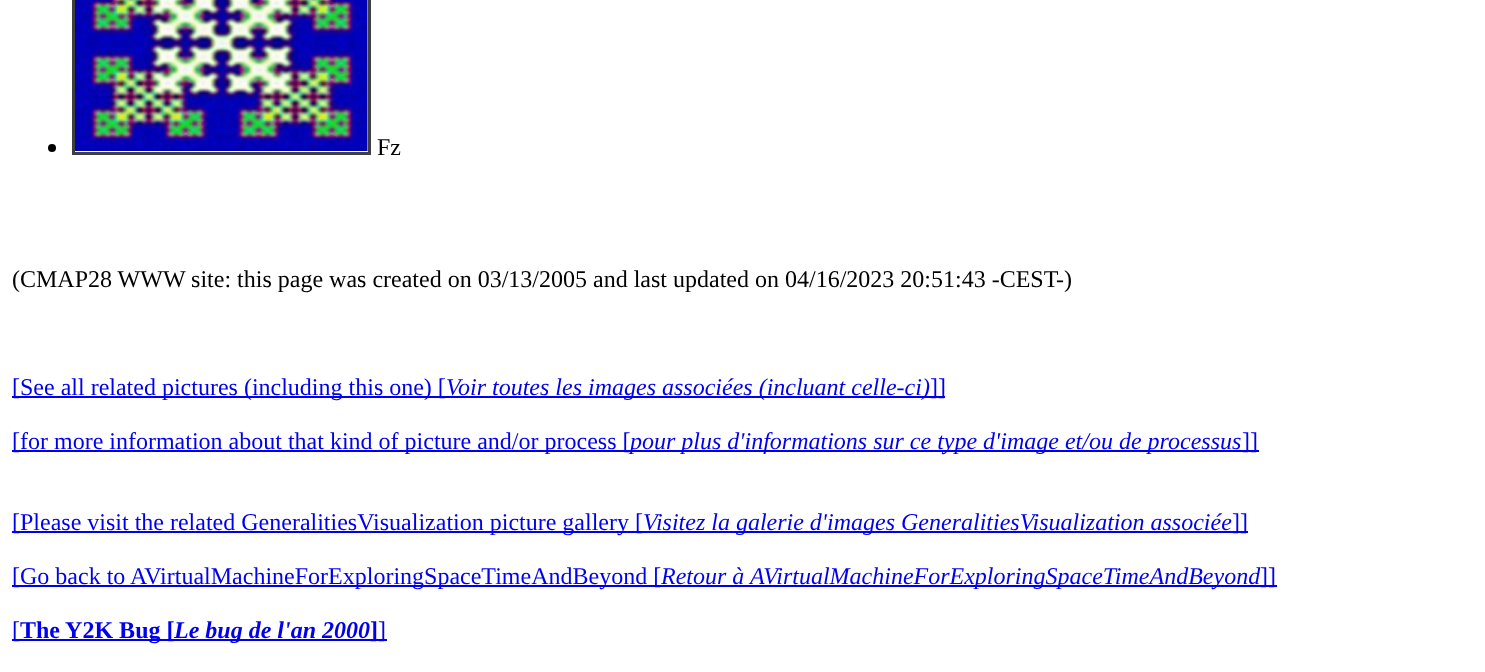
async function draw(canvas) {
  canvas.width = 1485
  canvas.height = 672
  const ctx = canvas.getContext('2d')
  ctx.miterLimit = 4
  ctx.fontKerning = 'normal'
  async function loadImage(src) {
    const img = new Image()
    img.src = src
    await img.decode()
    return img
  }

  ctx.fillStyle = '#fff'
  ctx.fillRect(0, 0, 1485, 672)
  ctx.strokeStyle = '#3f3f3f'
  ctx.lineWidth = 3
  ctx.strokeRect(73.5, -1.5, 296, 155)
  ctx.fillStyle = '#000'
  ctx.beginPath()
  ctx.arc(52, 148, 4, 0, 2 * Math.PI)
  ctx.fill()
  ctx.drawImage(await loadImage('image0.png'), 75, 0, 293, 151)
  ctx.font = '24px Liberation Serif'
  ctx.fillText('Fz', 377, 155)
  ctx.fillText('(CMAP28 WWW site: this page was created on 03/13/2005 and last updated on 04/16/2023 20:51:43 -CEST-)', 12, 287)
  ctx.fillStyle = '#00e'
  ctx.fillRect(12, 396, 933, 2)
  ctx.fillText('[See all related pictures (including this one) [', 12, 395)
  ctx.font = 'italic 24px Liberation Serif'
  ctx.fillText('Voir toutes les images associées (incluant celle-ci)', 446, 395)
  ctx.font = '24px Liberation Serif'
  ctx.fillText(']]', 930, 395)
  ctx.fillRect(12, 450, 1247, 2)
  ctx.fillText('[for more information about that kind of picture and/or process [', 12, 449)
  ctx.font = 'italic 24px Liberation Serif'
  ctx.fillText('pour plus d\'informations sur ce type d\'image et/ou de processus', 630, 449)
  ctx.font = '24px Liberation Serif'
  ctx.fillText(']]', 1242, 449)
  ctx.fillRect(12, 531, 1236, 2)
  ctx.fillText('[Please visit the related GeneralitiesVisualization picture gallery [', 12, 530)
  ctx.font = 'italic 24px Liberation Serif'
  ctx.fillText('Visitez la galerie d\'images GeneralitiesVisualization associée', 643, 530)
  ctx.font = '24px Liberation Serif'
  ctx.fillText(']]', 1232, 530)
  ctx.fillRect(12, 585, 1248, 2)
  ctx.fillText('[Go back to AVirtualMachineForExploringSpaceTimeAndBeyond [', 12, 584)
  ctx.font = 'italic 24px Liberation Serif'
  ctx.fillText('Retour à AVirtualMachineForExploringSpaceTimeAndBeyond', 661, 584)
  ctx.fillRect(1260, 585, 17, 2)
  ctx.font = '24px Liberation Serif'
  ctx.fillText(']]', 1260, 584)
  ctx.fillRect(12, 639, 375, 2)
  ctx.fillText('[', 12, 638)
  ctx.font = 'bold 24px Liberation Serif'
  ctx.fillText('The Y2K Bug [', 20, 638)
  ctx.font = 'italic bold 24px Liberation Serif'
  ctx.fillText('Le bug de l\'an 2000', 174, 638)
  ctx.font = 'bold 24px Liberation Serif'
  ctx.fillText(']', 370, 638)
  ctx.font = '24px Liberation Serif'
  ctx.fillText(']', 378, 638)
}

draw(document.querySelector('canvas'))
